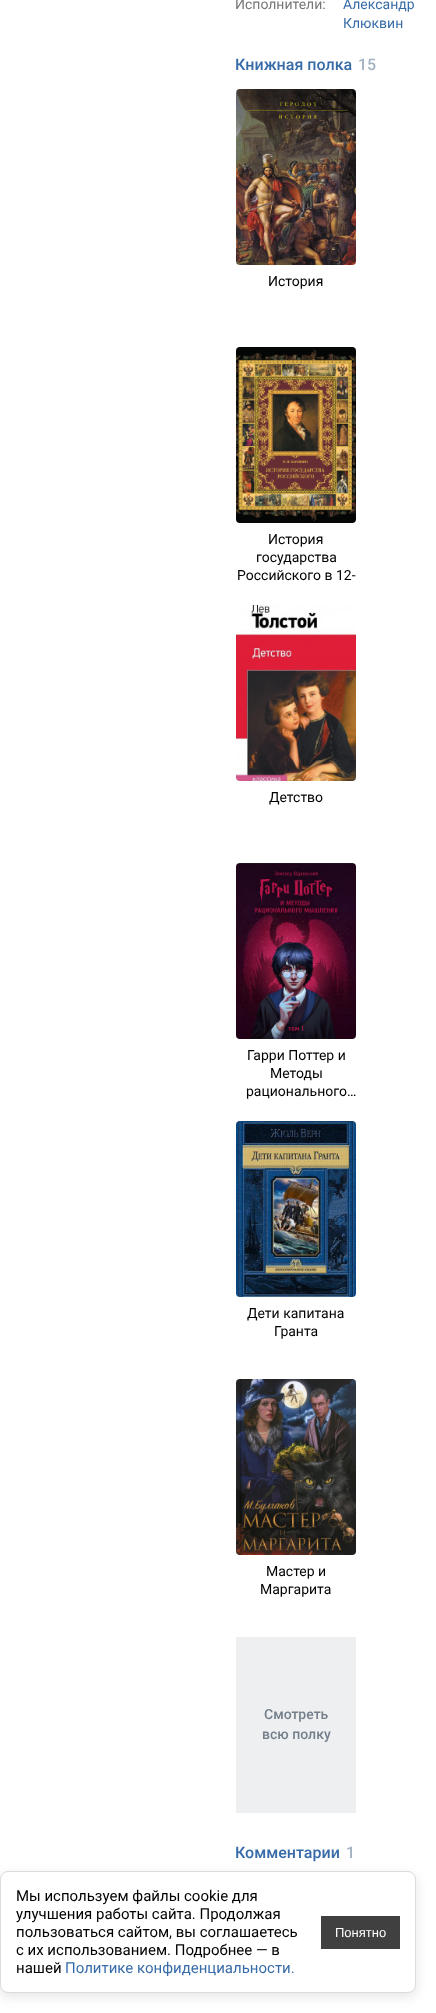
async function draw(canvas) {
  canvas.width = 436
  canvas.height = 2013
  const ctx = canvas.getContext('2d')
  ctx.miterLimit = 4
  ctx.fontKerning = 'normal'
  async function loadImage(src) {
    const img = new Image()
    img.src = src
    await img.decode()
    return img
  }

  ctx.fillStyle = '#fff'
  ctx.fillRect(0, 0, 436, 2013)
  ctx.font = '14px Roboto'
  ctx.fillStyle = '#777'
  ctx.fillText('Исполнители:', 235, 9)
  ctx.fillStyle = '#386ca8'
  ctx.fillText('Александр', 343, 9)
  ctx.fillText('Клюквин', 343, 28)
  ctx.font = '500 16px Roboto'
  ctx.fillText('Книжная полка', 235, 70)
  ctx.fillStyle = '#a3b2c2'
  ctx.fillText('15', 358, 70)
  ctx.drawImage(await loadImage('image0.png'), 236, 89, 120, 176)
  ctx.font = '14px Roboto'
  ctx.fillStyle = '#000'
  ctx.fillText('История', 268, 286)
  ctx.drawImage(await loadImage('image1.png'), 236, 347, 120, 176)
  ctx.fillText('История', 268, 544)
  ctx.fillText('государства', 256, 562)
  ctx.fillText('Российского в 12-', 237, 580)
  ctx.drawImage(await loadImage('image2.png'), 236, 605, 120, 176)
  ctx.fillText('Детство', 269, 802)
  ctx.drawImage(await loadImage('image3.png'), 236, 863, 120, 176)
  ctx.fillText('Гарри Поттер и', 247, 1060)
  ctx.fillText('Методы', 270, 1078)
  ctx.fillText('рационального…', 246, 1096)
  ctx.drawImage(await loadImage('image4.png'), 236, 1121, 120, 176)
  ctx.fillText('Дети капитана', 247, 1318)
  ctx.fillText('Гранта', 274, 1336)
  ctx.drawImage(await loadImage('image5.png'), 236, 1379, 120, 176)
  ctx.fillText('Мастер и', 266, 1576)
  ctx.fillText('Маргарита', 260, 1594)
  ctx.fillStyle = '#edeff1'
  ctx.fillRect(236, 1637, 120, 176)
  ctx.font = '500 14px Roboto'
  ctx.fillStyle = '#747f8b'
  ctx.fillText('Смотреть', 264, 1719)
  ctx.fillText('всю полку', 262, 1739)
  ctx.font = '500 16px Roboto'
  ctx.fillStyle = '#386ca8'
  ctx.fillText('Комментарии', 235, 1858)
  ctx.fillStyle = '#a3b2c2'
  ctx.fillText('1', 346, 1858)
  ctx.fillStyle = '#0000001a'
  ctx.filter = 'blur(6px)'
  ctx.beginPath()
  ctx.roundRect(0, 1875, 416, 122, 8)
  ctx.fill()
  ctx.filter = 'none'
  ctx.fillStyle = '#fff'
  ctx.beginPath()
  ctx.roundRect(0.5, 1871.5, 415, 121, 7.5)
  ctx.fill()
  ctx.strokeStyle = '#dadcde'
  ctx.stroke()
  ctx.font = '15px Roboto'
  ctx.fillStyle = '#000'
  ctx.fillText('Мы используем файлы cookie для', 16, 1901)
  ctx.fillText('улучшения работы сайта. Продолжая', 16, 1919)
  ctx.fillText('пользоваться сайтом, вы соглашаетесь', 16, 1937)
  ctx.fillText('с их использованием. Подробнее — в', 16, 1955)
  ctx.fillText('нашей', 16, 1973)
  ctx.fillStyle = '#386ca8'
  ctx.fillText('Политике конфиденциальности.', 65, 1973)
  ctx.fillStyle = '#404040'
  ctx.fillRect(321, 1916, 79, 33)
  ctx.font = '13px Liberation Sans'
  ctx.fillStyle = '#fff'
  ctx.fillText('Понятно', 335, 1937)
}

draw(document.querySelector('canvas'))
